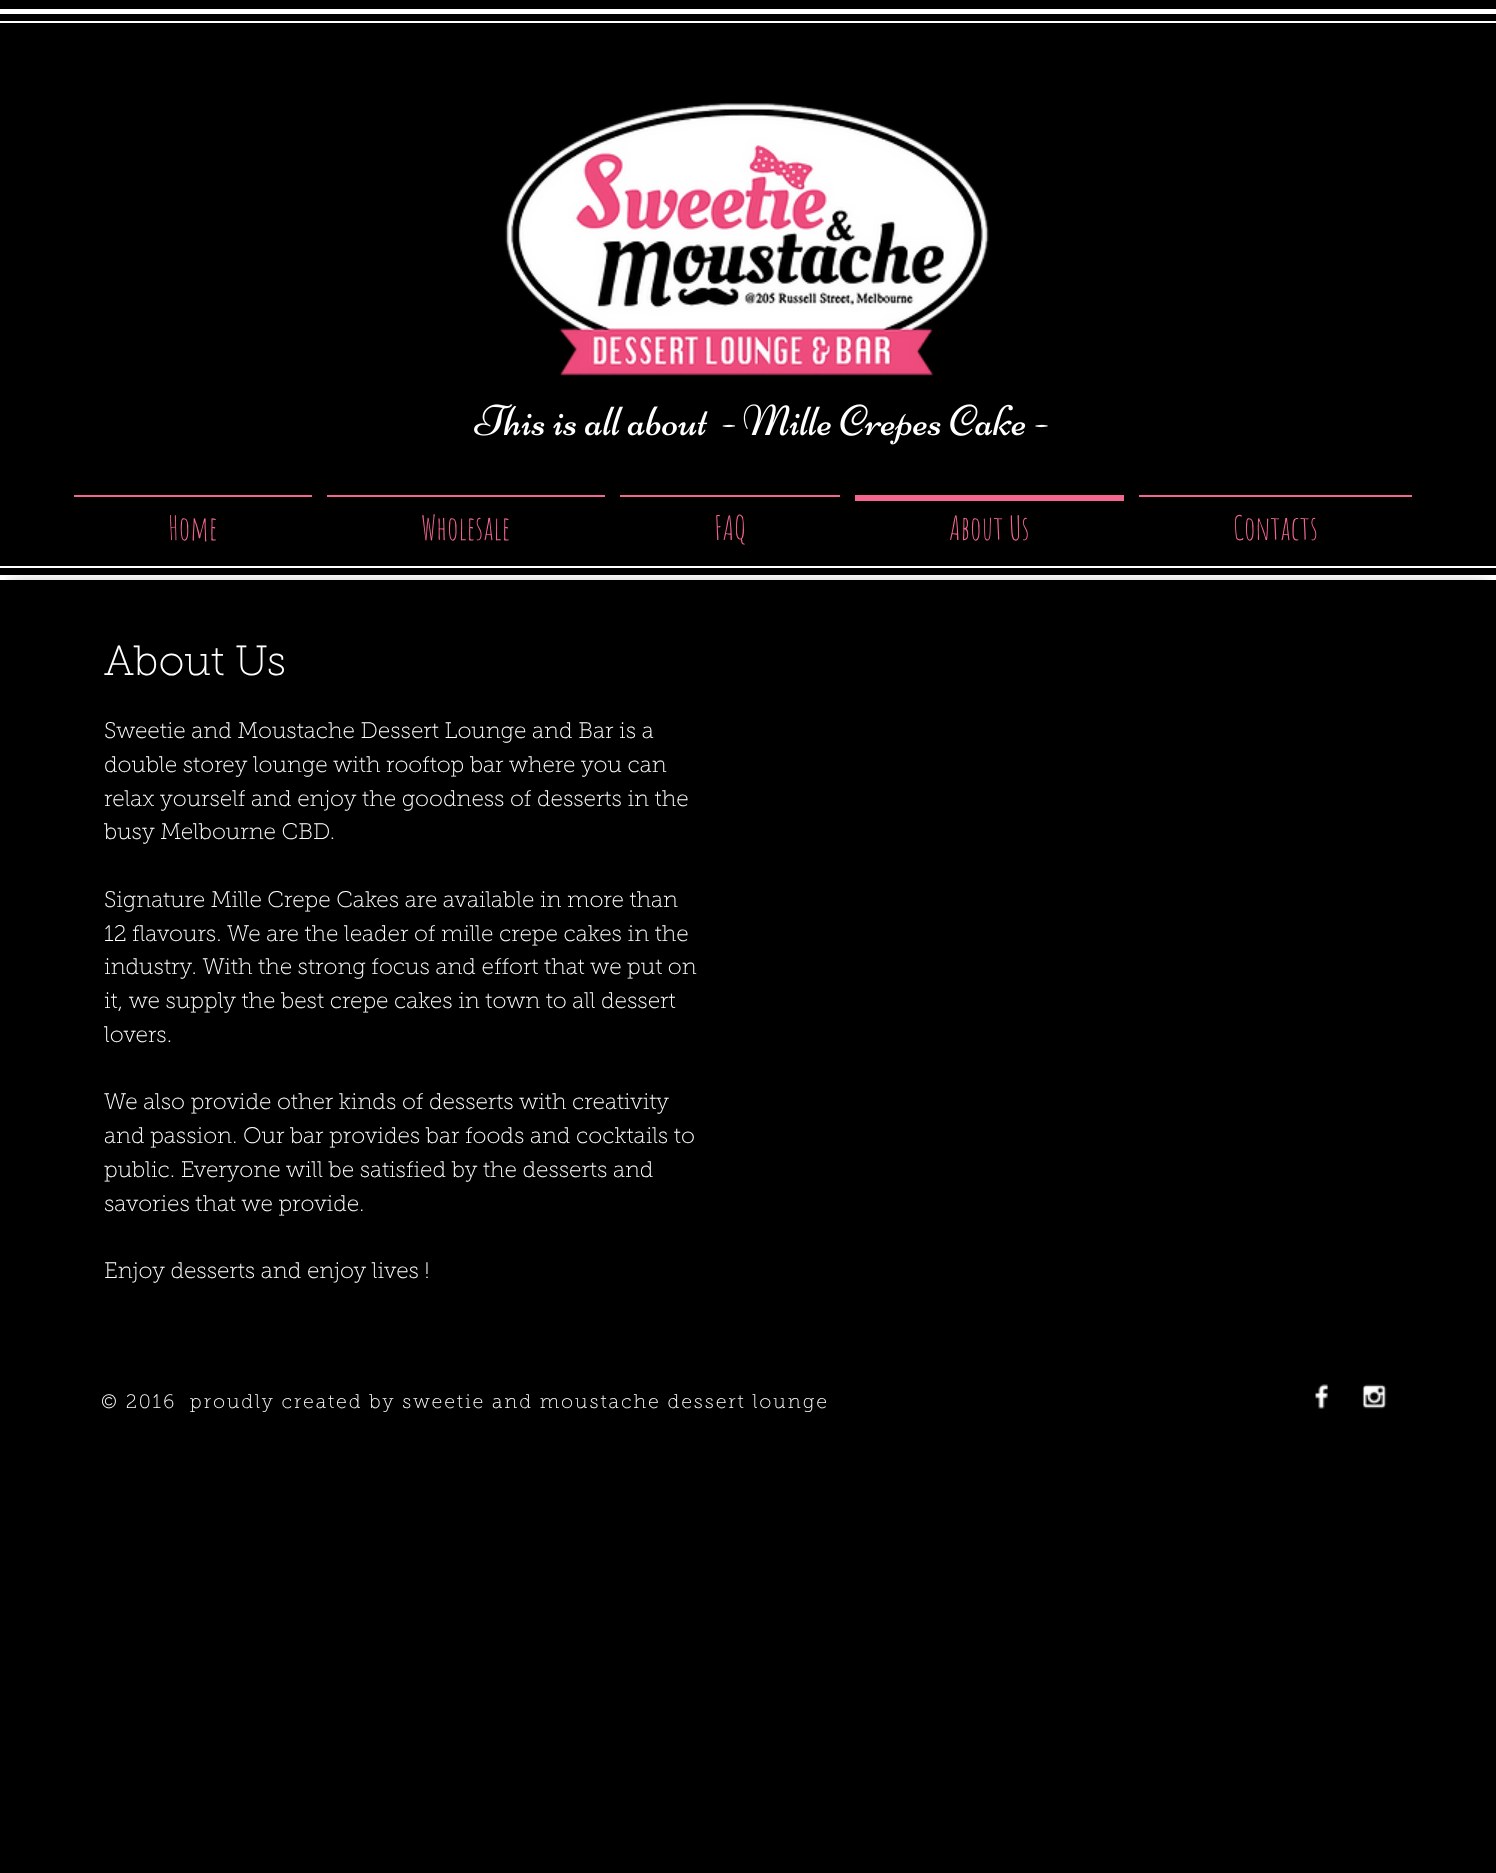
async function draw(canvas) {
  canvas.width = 1496
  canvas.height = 1873
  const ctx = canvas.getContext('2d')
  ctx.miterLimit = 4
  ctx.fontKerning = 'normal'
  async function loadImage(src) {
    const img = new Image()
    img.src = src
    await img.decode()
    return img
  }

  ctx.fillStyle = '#000'
  ctx.fillRect(0, 0, 1496, 1873)
  ctx.fillStyle = '#fff'
  ctx.fillRect(0, 9, 1496, 5)
  ctx.fillRect(0, 575, 1496, 5)
  ctx.fillRect(0, 21, 1496, 2)
  ctx.fillRect(0, 566, 1496, 2)
  ctx.drawImage(await loadImage('image0.png'), 505, 103, 484, 273)
  ctx.drawImage(await loadImage('image1.png'), 474, 404, 262, 32)
  ctx.drawImage(await loadImage('image2.png'), 743, 404, 305, 41)
  ctx.fillStyle = '#f2668f'
  ctx.fillRect(74, 495, 238, 2)
  ctx.font = '33px Amatic SC'
  ctx.fillText('Home', 168, 540)
  ctx.fillRect(327, 495, 278, 2)
  ctx.fillText('Wholesale', 421, 540)
  ctx.fillRect(620, 495, 220, 2)
  ctx.fillText('FAQ', 714, 540)
  ctx.fillRect(855, 495, 269, 6)
  ctx.fillText('About Us', 949, 540)
  ctx.fillRect(1139, 495, 273, 2)
  ctx.fillText('Contacts', 1233, 540)
  ctx.drawImage(await loadImage('image3.png'), 5, 575, 61, 5)
  ctx.drawImage(await loadImage('image4.png'), 66, 575, 1365, 5)
  ctx.drawImage(await loadImage('image5.png'), 1431, 575, 61, 5)
  ctx.font = '100 42px "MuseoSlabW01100"'
  ctx.fillStyle = '#fff'
  ctx.fillText('About Us', 104, 675)
  ctx.font = '100 22.5px "MuseoSlabW01100"'
  ctx.fillText('Sweetie and Moustache Dessert Lounge and Bar is a', 104, 738)
  ctx.fillText('double storey lounge with rooftop bar where you can', 104, 772)
  ctx.fillText('relax yourself and enjoy the goodness of desserts in the', 104, 806)
  ctx.fillText('busy Melbourne CBD.', 104, 839)
  ctx.fillText('Signature Mille Crepe Cakes are available in more than', 104, 907)
  ctx.fillText('12 flavours. We are the leader of mille crepe cakes in the', 104, 941)
  ctx.fillText('industry. With the strong focus and effort that we put on', 104, 974)
  ctx.fillText('it, we supply the best crepe cakes in town to all dessert', 104, 1008)
  ctx.fillText('lovers.', 104, 1042)
  ctx.fillText('We also provide other kinds of desserts with creativity', 104, 1109)
  ctx.fillText('and passion. Our bar provides bar foods and cocktails to', 104, 1143)
  ctx.fillText('public. Everyone will be satisfied by the desserts and', 104, 1177)
  ctx.fillText('savories that we provide.', 104, 1211)
  ctx.fillText('Enjoy desserts and enjoy lives !', 104, 1278)
  ctx.letterSpacing = '1.95px'
  ctx.font = '100 19.5px "MuseoSlabW01100"'
  ctx.fillText('© 2016  proudly created by sweetie and moustache dessert lounge', 101, 1408)
  ctx.drawImage(await loadImage('image6.png'), 1315, 1384, 14, 25)
  ctx.drawImage(await loadImage('image7.png'), 1362, 1384, 25, 25)
}

draw(document.querySelector('canvas'))
